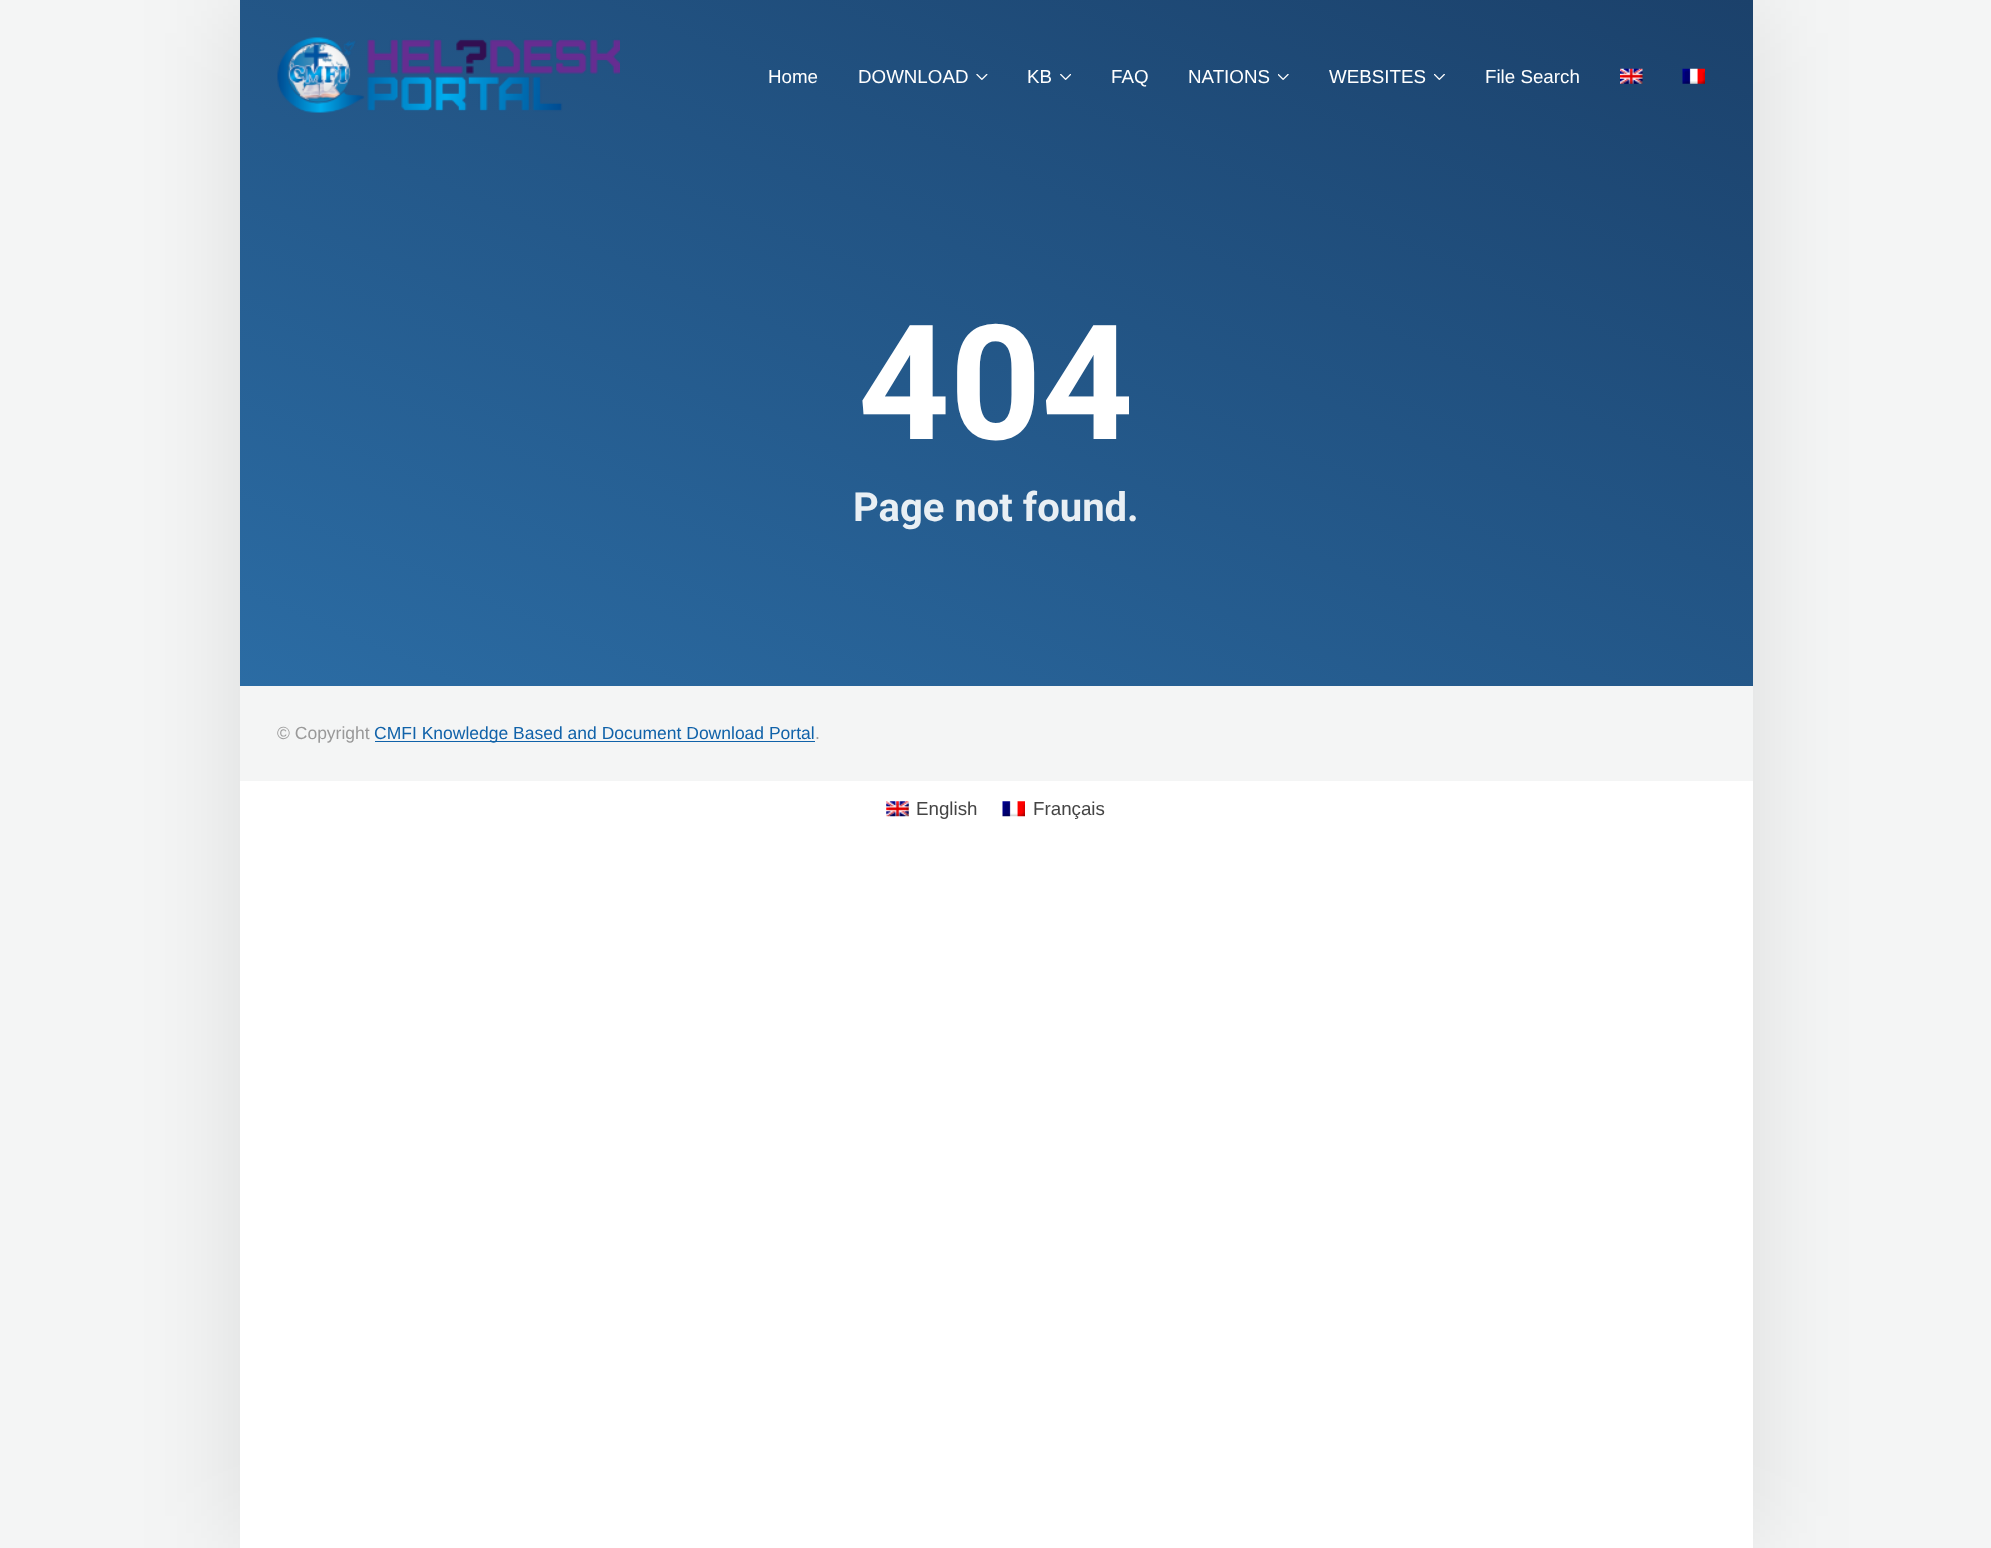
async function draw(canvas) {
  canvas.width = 1991
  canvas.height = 1548
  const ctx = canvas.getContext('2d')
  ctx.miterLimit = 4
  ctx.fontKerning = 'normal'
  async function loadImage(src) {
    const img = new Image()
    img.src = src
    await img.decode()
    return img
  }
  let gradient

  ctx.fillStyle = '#f4f5f5'
  ctx.fillRect(0, 0, 1991, 1548)
  ctx.fillStyle = '#0000001a'
  ctx.filter = 'blur(50px)'
  ctx.beginPath()
  ctx.rect(240, 0, 1513, 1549)
  ctx.fill()
  ctx.filter = 'none'
  ctx.fillStyle = '#fff'
  ctx.fillRect(240, 781, 1513, 767)
  gradient = ctx.createLinearGradient(1235, -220, 757, 906)
  gradient.addColorStop(0, '#1b416b')
  gradient.addColorStop(1, '#2b6ca4')
  ctx.fillStyle = gradient
  ctx.fillRect(240, 0, 1513, 686)
  ctx.drawImage(await loadImage('image0.png'), 277, 37, 343, 76)
  ctx.font = '18.75px Liberation Sans'
  ctx.fillStyle = '#fff'
  ctx.fillText('Home', 768, 83)
  ctx.fillText('DOWNLOAD', 858, 83)
  ctx.drawImage(await loadImage('image1.png'), 976, 74, 12, 6)
  ctx.fillText('KB', 1027, 83)
  ctx.drawImage(await loadImage('image2.png'), 1060, 74, 11, 6)
  ctx.fillText('FAQ', 1111, 83)
  ctx.fillText('NATIONS', 1188, 83)
  ctx.drawImage(await loadImage('image3.png'), 1278, 74, 11, 6)
  ctx.fillText('WEBSITES', 1329, 83)
  ctx.drawImage(await loadImage('image4.png'), 1434, 74, 11, 6)
  ctx.fillText('File Search', 1485, 83)
  ctx.drawImage(await loadImage('image5.png'), 1620, 68, 23, 16)
  ctx.drawImage(await loadImage('image6.png'), 1682, 68, 23, 16)
  ctx.font = 'bold 160px Roboto'
  ctx.fillText('404', 858, 439)
  ctx.font = 'bold 40px Roboto'
  ctx.fillStyle = '#e9eff4'
  ctx.fillText('Page not found.', 853, 521)
  ctx.fillStyle = '#f4f5f5'
  ctx.fillRect(240, 686, 1513, 95)
  ctx.font = '17.5px Liberation Sans'
  ctx.fillStyle = '#999'
  ctx.fillText('© Copyright', 277, 739)
  ctx.fillStyle = '#1062a9'
  ctx.fillRect(375, 741, 440, 1)
  ctx.fillText('CMFI Knowledge Based and Document Download Portal', 374, 739)
  ctx.fillStyle = '#999'
  ctx.fillText('.', 815, 739)
  ctx.drawImage(await loadImage('image7.png'), 886, 801, 23, 16)
  ctx.font = '18.75px Liberation Sans'
  ctx.fillStyle = '#444'
  ctx.fillText('English', 916, 815)
  ctx.drawImage(await loadImage('image8.png'), 1002, 801, 23, 16)
  ctx.fillText('Français', 1033, 815)
}

draw(document.querySelector('canvas'))
